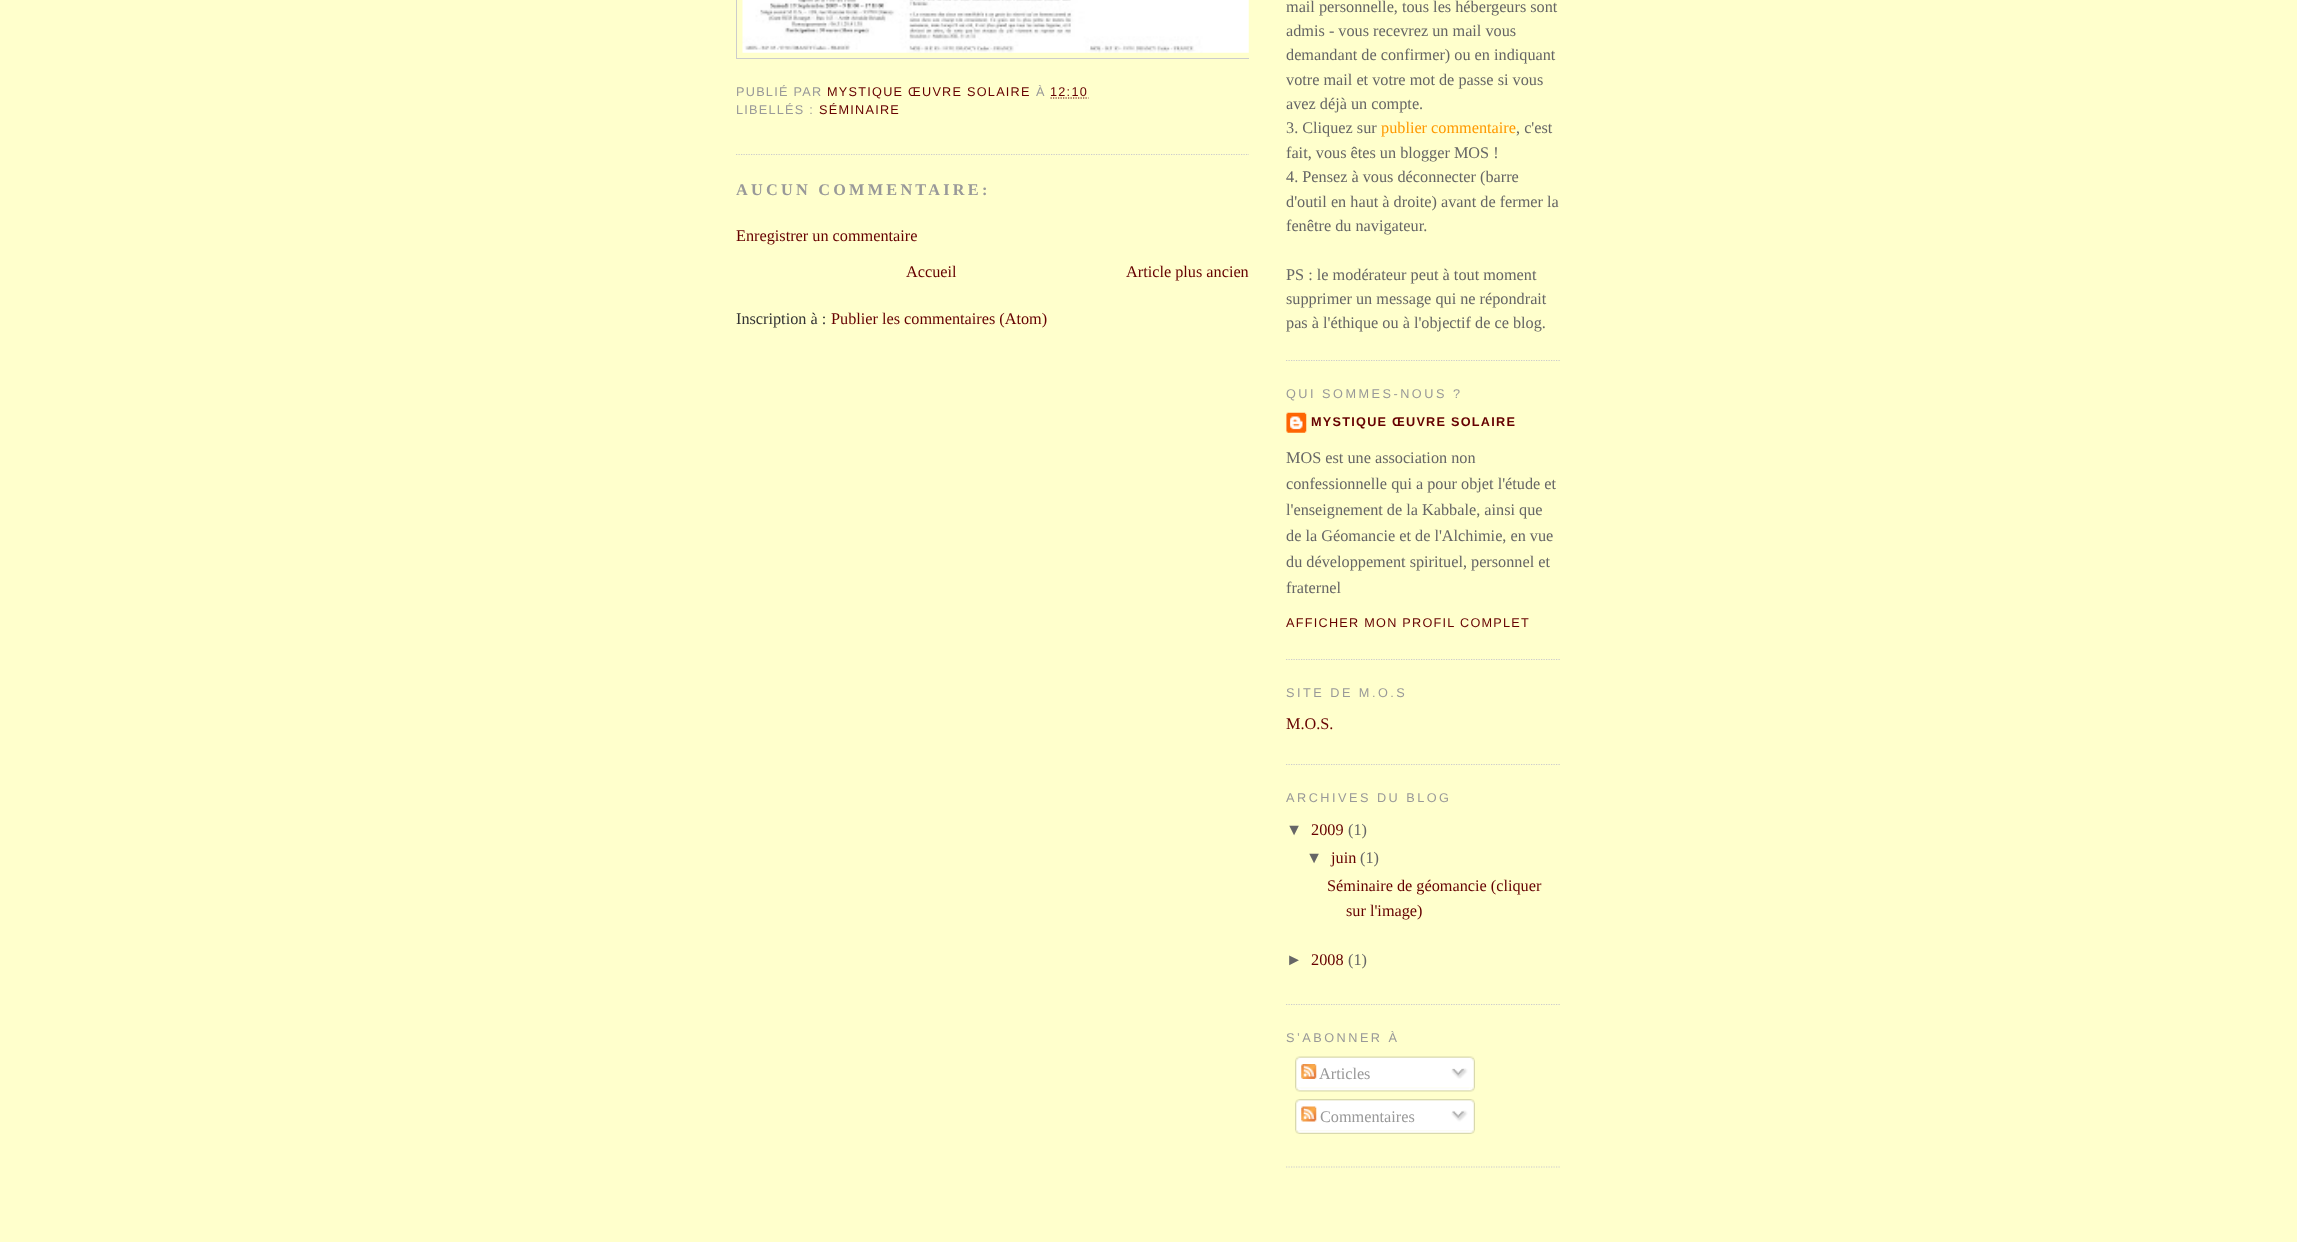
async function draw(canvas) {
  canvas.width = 2297
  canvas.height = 1242
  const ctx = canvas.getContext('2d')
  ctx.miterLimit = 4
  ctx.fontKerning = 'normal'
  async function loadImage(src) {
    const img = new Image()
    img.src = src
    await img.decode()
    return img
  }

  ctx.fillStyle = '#ffc'
  ctx.fillRect(0, 0, 2297, 1242)
  ctx.beginPath()
  ctx.moveTo(736, 154.5)
  ctx.lineTo(1249, 154.5)
  ctx.strokeStyle = '#ccc'
  ctx.lineWidth = 1.2
  ctx.setLineDash([1.25, 1.25])
  ctx.stroke()
  ctx.save()
  ctx.beginPath()
  ctx.rect(736, 0, 513, 388)
  ctx.clip()
  ctx.lineWidth = 1
  ctx.setLineDash([])
  ctx.strokeRect(736.5, -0.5, 537, 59)
  ctx.restore()
  ctx.drawImage(await loadImage('image0.png'), 742, 0, 507, 53)
  ctx.letterSpacing = '1.25px'
  ctx.font = '12.7px Liberation Sans'
  ctx.fillStyle = '#999'
  ctx.fillText('PUBLIÉ PAR', 736, 96)
  ctx.fillStyle = '#600'
  ctx.fillText('MYSTIQUE ŒUVRE SOLAIRE', 827, 96)
  ctx.fillStyle = '#999'
  ctx.fillText('À', 1036, 96)
  ctx.fillStyle = '#600'
  ctx.fillText('12:10', 1050, 96)
  ctx.beginPath()
  ctx.moveTo(1050.5, 98)
  ctx.lineTo(1088.5, 98)
  ctx.strokeStyle = '#600'
  ctx.stroke()
  ctx.fillStyle = '#999'
  ctx.fillText('LIBELLÉS :', 736, 114)
  ctx.fillStyle = '#600'
  ctx.fillText('SÉMINAIRE', 819, 114)
  ctx.letterSpacing = '3.25px'
  ctx.font = 'bold 16.25px Liberation Serif'
  ctx.fillStyle = '#999'
  ctx.fillText('AUCUN COMMENTAIRE:', 736, 195)
  ctx.letterSpacing = '0px'
  ctx.font = '16.25px Liberation Serif'
  ctx.fillStyle = '#600'
  ctx.fillText('Enregistrer un commentaire', 736, 241)
  ctx.fillText('Accueil', 906, 277)
  ctx.fillText('Article plus ancien', 1126, 277)
  ctx.fillStyle = '#333'
  ctx.fillText('Inscription à :', 736, 324)
  ctx.fillStyle = '#600'
  ctx.fillText('Publier les commentaires (Atom)', 831, 324)
  ctx.beginPath()
  ctx.moveTo(1286, 360.5)
  ctx.lineTo(1561, 360.5)
  ctx.strokeStyle = '#ccc'
  ctx.stroke()
  ctx.fillStyle = '#666'
  ctx.fillText('mail personnelle, tous les hébergeurs sont', 1286, 12)
  ctx.fillText('admis - vous recevrez un mail vous', 1286, 36)
  ctx.fillText('demandant de confirmer) ou en indiquant', 1286, 60)
  ctx.fillText('votre mail et votre mot de passe si vous', 1286, 85)
  ctx.fillText('avez déjà un compte.', 1286, 109)
  ctx.fillText('3. Cliquez sur', 1286, 133)
  ctx.fillStyle = '#f90'
  ctx.fillText('publier commentaire', 1381, 133)
  ctx.fillStyle = '#666'
  ctx.fillText(', c\'est', 1516, 133)
  ctx.fillText('fait, vous êtes un blogger MOS !', 1286, 158)
  ctx.fillText('4. Pensez à vous déconnecter (barre', 1286, 182)
  ctx.fillText('d\'outil en haut à droite) avant de fermer la', 1286, 207)
  ctx.fillText('fenêtre du navigateur.', 1286, 231)
  ctx.fillText('PS : le modérateur peut à tout moment', 1286, 280)
  ctx.fillText('supprimer un message qui ne répondrait', 1286, 304)
  ctx.fillText('pas à l\'éthique ou à l\'objectif de ce blog.', 1286, 328)
  ctx.beginPath()
  ctx.moveTo(1286, 659.5)
  ctx.lineTo(1561, 659.5)
  ctx.stroke()
  ctx.letterSpacing = '2.5px'
  ctx.font = '12.7px Liberation Sans'
  ctx.fillStyle = '#999'
  ctx.fillText('QUI SOMMES-NOUS ?', 1286, 398)
  ctx.drawImage(await loadImage('image1.png'), 1286, 412, 21, 21)
  ctx.letterSpacing = '1.25px'
  ctx.font = 'bold 12.7px Liberation Sans'
  ctx.fillStyle = '#600'
  ctx.fillText('MYSTIQUE ŒUVRE SOLAIRE', 1311, 426)
  ctx.letterSpacing = '0px'
  ctx.font = '16.25px Liberation Serif'
  ctx.fillStyle = '#666'
  ctx.fillText('MOS est une association non', 1286, 463)
  ctx.fillText('confessionnelle qui a pour objet l\'étude et', 1286, 489)
  ctx.fillText('l\'enseignement de la Kabbale, ainsi que', 1286, 515)
  ctx.fillText('de la Géomancie et de l\'Alchimie, en vue', 1286, 541)
  ctx.fillText('du développement spirituel, personnel et', 1286, 567)
  ctx.fillText('fraternel', 1286, 593)
  ctx.letterSpacing = '1.25px'
  ctx.font = '12.7px Liberation Sans'
  ctx.fillStyle = '#600'
  ctx.fillText('AFFICHER MON PROFIL COMPLET', 1286, 627)
  ctx.beginPath()
  ctx.moveTo(1286, 764.5)
  ctx.lineTo(1561, 764.5)
  ctx.stroke()
  ctx.letterSpacing = '2.5px'
  ctx.fillStyle = '#999'
  ctx.fillText('SITE DE M.O.S', 1286, 697)
  ctx.letterSpacing = '0px'
  ctx.font = '16.25px Liberation Serif'
  ctx.fillStyle = '#600'
  ctx.fillText('M.O.S.', 1286, 729)
  ctx.beginPath()
  ctx.moveTo(1286, 1004.5)
  ctx.lineTo(1561, 1004.5)
  ctx.stroke()
  ctx.letterSpacing = '2.5px'
  ctx.font = '12.7px Liberation Sans'
  ctx.fillStyle = '#999'
  ctx.fillText('ARCHIVES DU BLOG', 1286, 802)
  ctx.letterSpacing = '0px'
  ctx.font = '16.25px Liberation Sans'
  ctx.fillStyle = '#666'
  ctx.fillText('▼', 1286, 835)
  ctx.font = '16.25px Liberation Serif'
  ctx.fillStyle = '#600'
  ctx.fillText('2009', 1311, 835)
  ctx.fillStyle = '#666'
  ctx.fillText('(1)', 1348, 835)
  ctx.font = '16.25px Liberation Sans'
  ctx.fillText('▼', 1306, 863)
  ctx.font = '16.25px Liberation Serif'
  ctx.fillStyle = '#600'
  ctx.fillText('juin', 1331, 863)
  ctx.fillStyle = '#666'
  ctx.fillText('(1)', 1360, 863)
  ctx.fillStyle = '#600'
  ctx.fillText('Séminaire de géomancie (cliquer', 1327, 891)
  ctx.fillText('sur l\'image)', 1346, 916)
  ctx.font = '16.25px Liberation Sans'
  ctx.fillStyle = '#666'
  ctx.fillText('►', 1286, 965)
  ctx.font = '16.25px Liberation Serif'
  ctx.fillStyle = '#600'
  ctx.fillText('2008', 1311, 965)
  ctx.fillStyle = '#666'
  ctx.fillText('(1)', 1348, 965)
  ctx.beginPath()
  ctx.moveTo(1286, 1167)
  ctx.lineTo(1561, 1167)
  ctx.stroke()
  ctx.letterSpacing = '2.5px'
  ctx.font = '12.7px Liberation Sans'
  ctx.fillStyle = '#999'
  ctx.fillText('S’ABONNER À', 1286, 1042)
  ctx.drawImage(await loadImage('image2.png'), 1295, 1056, 180, 32)
  ctx.drawImage(await loadImage('image3.png'), 1301, 1064, 16, 15)
  ctx.letterSpacing = '0px'
  ctx.font = '16.25px Liberation Serif'
  ctx.fillText('Articles', 1319, 1079)
  ctx.drawImage(await loadImage('image4.png'), 1451, 1068, 17, 11)
  ctx.drawImage(await loadImage('image5.png'), 1295, 1087, 180, 5)
  ctx.drawImage(await loadImage('image6.png'), 1295, 1099, 180, 32)
  ctx.drawImage(await loadImage('image7.png'), 1301, 1106, 16, 16)
  ctx.fillText('Commentaires', 1320, 1122)
  ctx.drawImage(await loadImage('image8.png'), 1451, 1110, 17, 12)
  ctx.drawImage(await loadImage('image9.png'), 1295, 1130, 180, 4)
}

draw(document.querySelector('canvas'))
